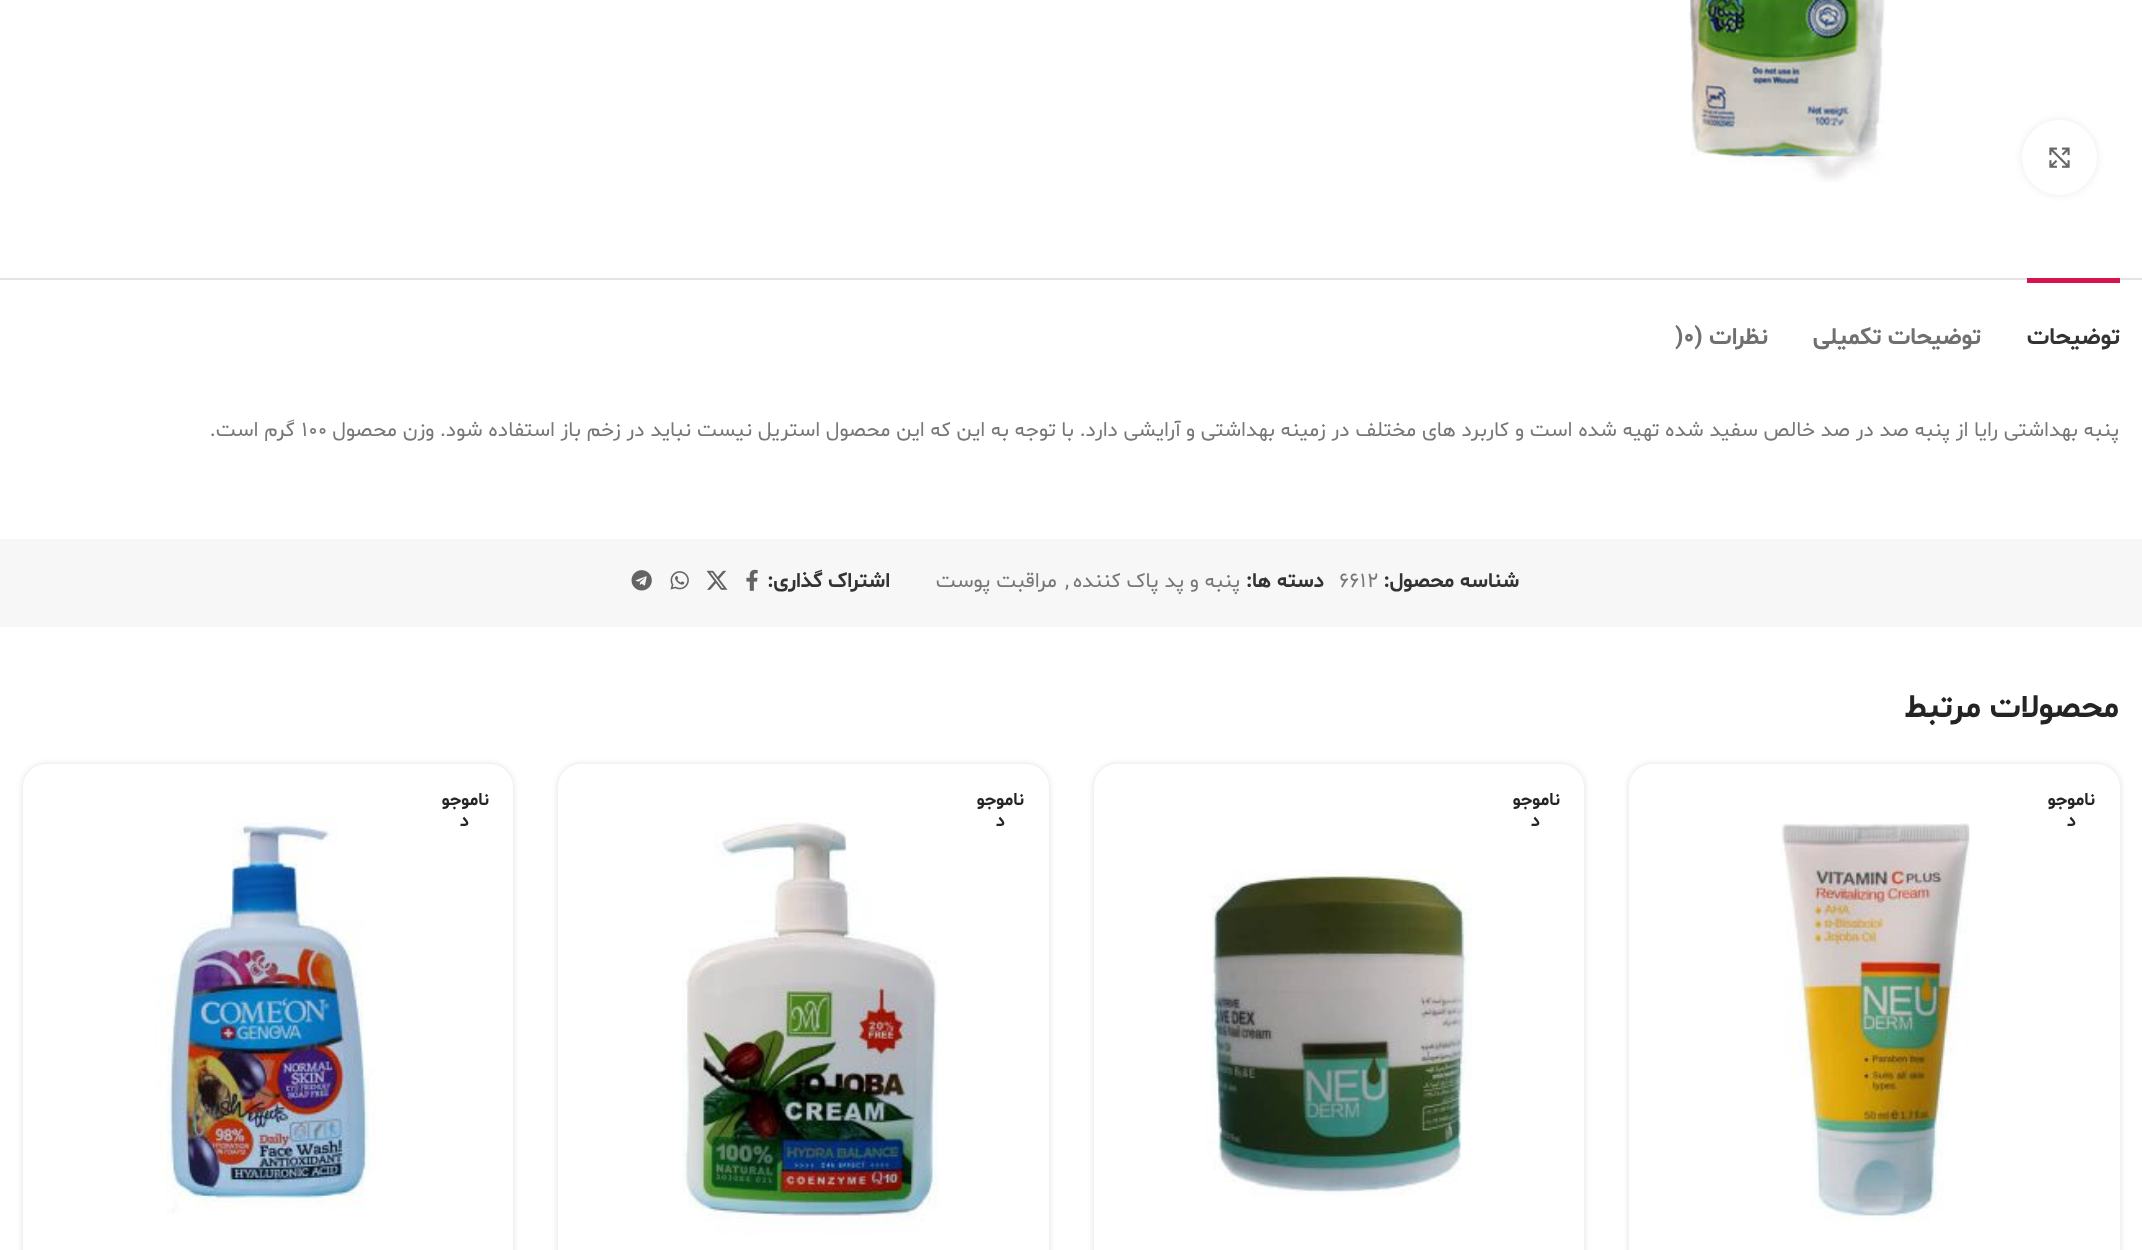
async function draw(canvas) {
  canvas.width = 2142
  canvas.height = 1250
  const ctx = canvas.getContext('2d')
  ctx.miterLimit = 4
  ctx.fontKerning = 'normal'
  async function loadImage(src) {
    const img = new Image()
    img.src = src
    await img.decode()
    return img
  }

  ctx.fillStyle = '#fff'
  ctx.fillRect(0, 0, 2142, 1250)
  ctx.fillStyle = '#00000014'
  ctx.filter = 'blur(4px)'
  ctx.beginPath()
  ctx.roundRect(2022, 120, 75, 75, 37.5)
  ctx.fill()
  ctx.filter = 'none'
  ctx.fillStyle = '#fff'
  ctx.beginPath()
  ctx.arc(2059.5, 157.5, 37.5, 0, 2 * Math.PI)
  ctx.fill()
  ctx.drawImage(await loadImage('image0.png'), 2049, 147, 21, 21)
  ctx.drawImage(await loadImage('image1.png'), 1689, 0, 196, 182)
  ctx.fillStyle = '#e4e4e4'
  ctx.fillRect(0, 278, 2142, 2)
  ctx.fillStyle = '#d6154f'
  ctx.fillRect(2027, 278, 93, 5)
  ctx.direction = 'rtl'
  ctx.font = 'bold 24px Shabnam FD'
  ctx.fillStyle = '#333'
  ctx.fillText('توضیحات', 2120, 344)
  ctx.fillStyle = '#707070'
  ctx.fillText('توضیحات تکمیلی', 1981, 344)
  ctx.fillText('نظرات (', 1768, 344)
  ctx.direction = 'ltr'
  ctx.fillText(')0', 1675, 344)
  ctx.direction = 'rtl'
  ctx.font = '21px Shabnam FD'
  ctx.fillStyle = '#777'
  ctx.fillText('پنبه بهداشتی رایا از پنبه صد در صد خالص سفید شده تهیه شده است و کاربرد های مختلف در زمینه بهداشتی و آرایشی دارد. با توجه به این که این محصول استریل نیست نباید در زخم باز استفاده شود. وزن محصول', 2119, 436)
  ctx.direction = 'ltr'
  ctx.fillText('۱۰۰', 301, 436)
  ctx.direction = 'rtl'
  ctx.fillText('گرم است.', 295, 436)
  ctx.fillStyle = '#f7f7f7'
  ctx.fillRect(0, 539, 2142, 88)
  ctx.font = 'bold 21px Shabnam FD'
  ctx.fillStyle = '#333'
  ctx.fillText('شناسه محصول:', 1519, 587)
  ctx.direction = 'ltr'
  ctx.font = '21px Shabnam FD'
  ctx.fillStyle = '#777'
  ctx.fillText('6612', 1339, 587)
  ctx.direction = 'rtl'
  ctx.font = 'bold 21px Shabnam FD'
  ctx.fillStyle = '#333'
  ctx.fillText('دسته ها:', 1324, 587)
  ctx.font = '21px Shabnam FD'
  ctx.fillStyle = '#777'
  ctx.fillText('پنبه و پد پاک کننده', 1240, 587)
  ctx.direction = 'ltr'
  ctx.fillText(',', 1065, 587)
  ctx.direction = 'rtl'
  ctx.fillText('مراقبت پوست', 1057, 587)
  ctx.font = 'bold 21px Shabnam FD'
  ctx.fillStyle = '#333'
  ctx.fillText('اشتراک گذاری:', 890, 587)
  ctx.drawImage(await loadImage('image2.png'), 746, 569, 12, 22)
  ctx.drawImage(await loadImage('image3.png'), 706, 570, 22, 20)
  ctx.drawImage(await loadImage('image4.png'), 670, 571, 19, 19)
  ctx.drawImage(await loadImage('image5.png'), 631, 570, 21, 21)
  ctx.font = 'bold 33px Shabnam FD'
  ctx.fillStyle = '#242424'
  ctx.fillText('محصولات مرتبط', 2119, 717)
  ctx.fillStyle = '#0000001f'
  ctx.filter = 'blur(3px)'
  ctx.beginPath()
  ctx.roundRect(1629, 764, 491, 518, 23)
  ctx.fill()
  ctx.filter = 'none'
  ctx.fillStyle = '#fff'
  ctx.beginPath()
  ctx.roundRect(1629, 764, 491, 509, 23)
  ctx.fill()
  ctx.font = 'bold 18px Shabnam FD'
  ctx.fillStyle = '#242424'
  ctx.fillText('ناموجو', 2095, 805)
  ctx.fillText('د', 2076, 826)
  ctx.drawImage(await loadImage('image6.png'), 1781, 823, 189, 400)
  ctx.fillStyle = '#0000001f'
  ctx.filter = 'blur(3px)'
  ctx.beginPath()
  ctx.roundRect(1094, 764, 490, 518, 23)
  ctx.fill()
  ctx.filter = 'none'
  ctx.fillStyle = '#fff'
  ctx.beginPath()
  ctx.roundRect(1094, 764, 490, 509, 23)
  ctx.fill()
  ctx.fillStyle = '#242424'
  ctx.fillText('ناموجو', 1560, 805)
  ctx.fillText('د', 1540, 826)
  ctx.drawImage(await loadImage('image7.png'), 1206, 869, 266, 327)
  ctx.fillStyle = '#0000001f'
  ctx.filter = 'blur(3px)'
  ctx.beginPath()
  ctx.roundRect(558, 764, 491, 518, 23)
  ctx.fill()
  ctx.filter = 'none'
  ctx.fillStyle = '#fff'
  ctx.beginPath()
  ctx.roundRect(558, 764, 491, 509, 23)
  ctx.fill()
  ctx.fillStyle = '#242424'
  ctx.fillText('ناموجو', 1024, 805)
  ctx.fillText('د', 1005, 826)
  ctx.drawImage(await loadImage('image8.png'), 681, 817, 259, 418)
  ctx.fillStyle = '#0000001f'
  ctx.filter = 'blur(3px)'
  ctx.beginPath()
  ctx.roundRect(23, 764, 490, 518, 23)
  ctx.fill()
  ctx.filter = 'none'
  ctx.fillStyle = '#fff'
  ctx.beginPath()
  ctx.roundRect(23, 764, 490, 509, 23)
  ctx.fill()
  ctx.fillStyle = '#242424'
  ctx.fillText('ناموجو', 489, 805)
  ctx.fillText('د', 469, 826)
  ctx.drawImage(await loadImage('image9.png'), 154, 817, 222, 397)
}

draw(document.querySelector('canvas'))
